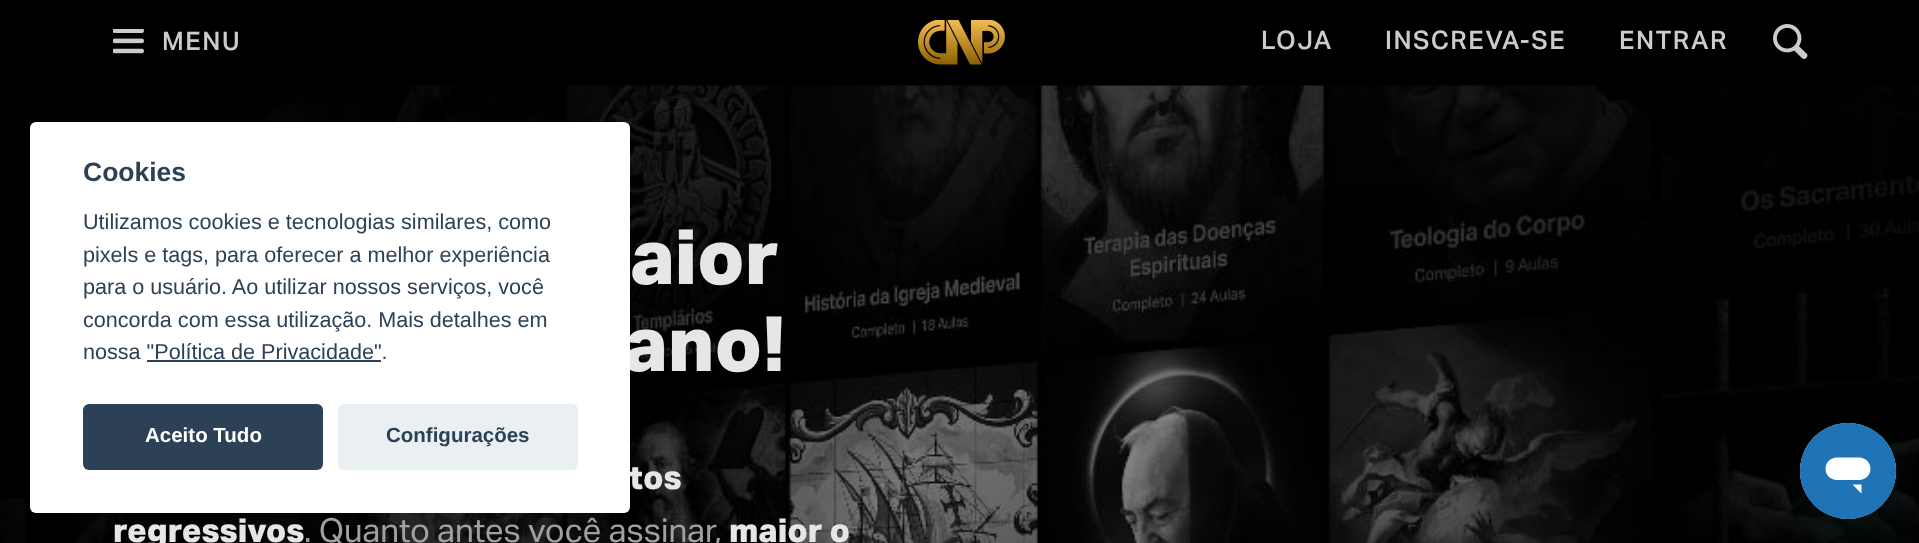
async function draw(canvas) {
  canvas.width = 1919
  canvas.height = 543
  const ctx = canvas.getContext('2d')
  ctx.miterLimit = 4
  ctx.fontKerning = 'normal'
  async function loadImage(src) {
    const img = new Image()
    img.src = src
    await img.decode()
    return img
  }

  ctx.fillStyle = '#000'
  ctx.fillRect(0, 0, 1919, 543)
  ctx.drawImage(await loadImage('image0.png'), 113, 29, 31, 25)
  ctx.letterSpacing = '1.5px'
  ctx.font = '500 25.5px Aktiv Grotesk'
  ctx.fillStyle = '#ccc'
  ctx.fillText('MENU', 162, 50)
  ctx.drawImage(await loadImage('image1.png'), 918, 20, 87, 45)
  ctx.fillText('LOJA', 1261, 49)
  ctx.fillText('INSCREVA-SE', 1385, 49)
  ctx.fillText('ENTRAR', 1619, 49)
  ctx.drawImage(await loadImage('image2.png'), 1773, 24, 35, 35)
  ctx.drawImage(await loadImage('image3.png'), 0, 85, 1919, 458)
  ctx.fillStyle = '#02020347'
  ctx.filter = 'blur(22.5px)'
  ctx.beginPath()
  ctx.roundRect(30, 137, 600, 391, 6)
  ctx.fill()
  ctx.filter = 'none'
  ctx.letterSpacing = '0px'
  ctx.font = 'bold 76.5px Aktiv Grotesk'
  ctx.fillStyle = '#e6e6e6'
  ctx.fillText('ano!', 623, 371)
  ctx.font = 'bold 33px Aktiv Grotesk'
  ctx.fillText('tos', 629, 489)
  ctx.fillStyle = '#fff'
  ctx.beginPath()
  ctx.roundRect(30, 122, 600, 391, 6)
  ctx.fill()
  ctx.font = 'bold 26.5px Liberation Sans'
  ctx.fillStyle = '#2d4156'
  ctx.fillText('Cookies', 83, 181)
  ctx.font = '21.6px Liberation Sans'
  ctx.fillText('Utilizamos cookies e tecnologias similares, como', 83, 229)
  ctx.fillText('pixels e tags, para oferecer a melhor experiência', 83, 262)
  ctx.fillText('para o usuário. Ao utilizar nossos serviços, você', 83, 294)
  ctx.fillText('concorda com essa utilização. Mais detalhes em', 83, 327)
  ctx.fillText('nossa "Política de Privacidade".', 83, 359)
  ctx.fillRect(147, 360, 234, 2)
  ctx.beginPath()
  ctx.roundRect(83, 404, 240, 66, 6)
  ctx.fill()
  ctx.font = 'bold 20.5px Liberation Sans'
  ctx.fillStyle = '#fff'
  ctx.fillText('Aceito Tudo', 145, 442)
  ctx.fillStyle = '#eaeff2'
  ctx.beginPath()
  ctx.roundRect(338, 404, 240, 66, 6)
  ctx.fill()
  ctx.fillStyle = '#2d4156'
  ctx.fillText('Configurações', 386, 442)
  ctx.font = 'bold 76.5px Aktiv Grotesk'
  ctx.fillStyle = '#e6e6e6'
  ctx.fillText('aior', 630, 284)
  ctx.font = 'bold 33px Aktiv Grotesk'
  ctx.fillText('regressivos', 113, 542)
  ctx.font = '33px Aktiv Grotesk'
  ctx.fillStyle = '#a0a0a0'
  ctx.fillText('. Quanto antes você assinar,', 304, 542)
  ctx.font = 'bold 33px Aktiv Grotesk'
  ctx.fillStyle = '#e6e6e6'
  ctx.fillText('maior o', 729, 542)
  ctx.fillStyle = '#17494d26'
  ctx.filter = 'blur(22.5px)'
  ctx.beginPath()
  ctx.roundRect(1800, 453, 96, 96, 48)
  ctx.fill()
  ctx.filter = 'none'
  ctx.drawImage(await loadImage('image4.png'), 1800, 423, 96, 96)
}

draw(document.querySelector('canvas'))
